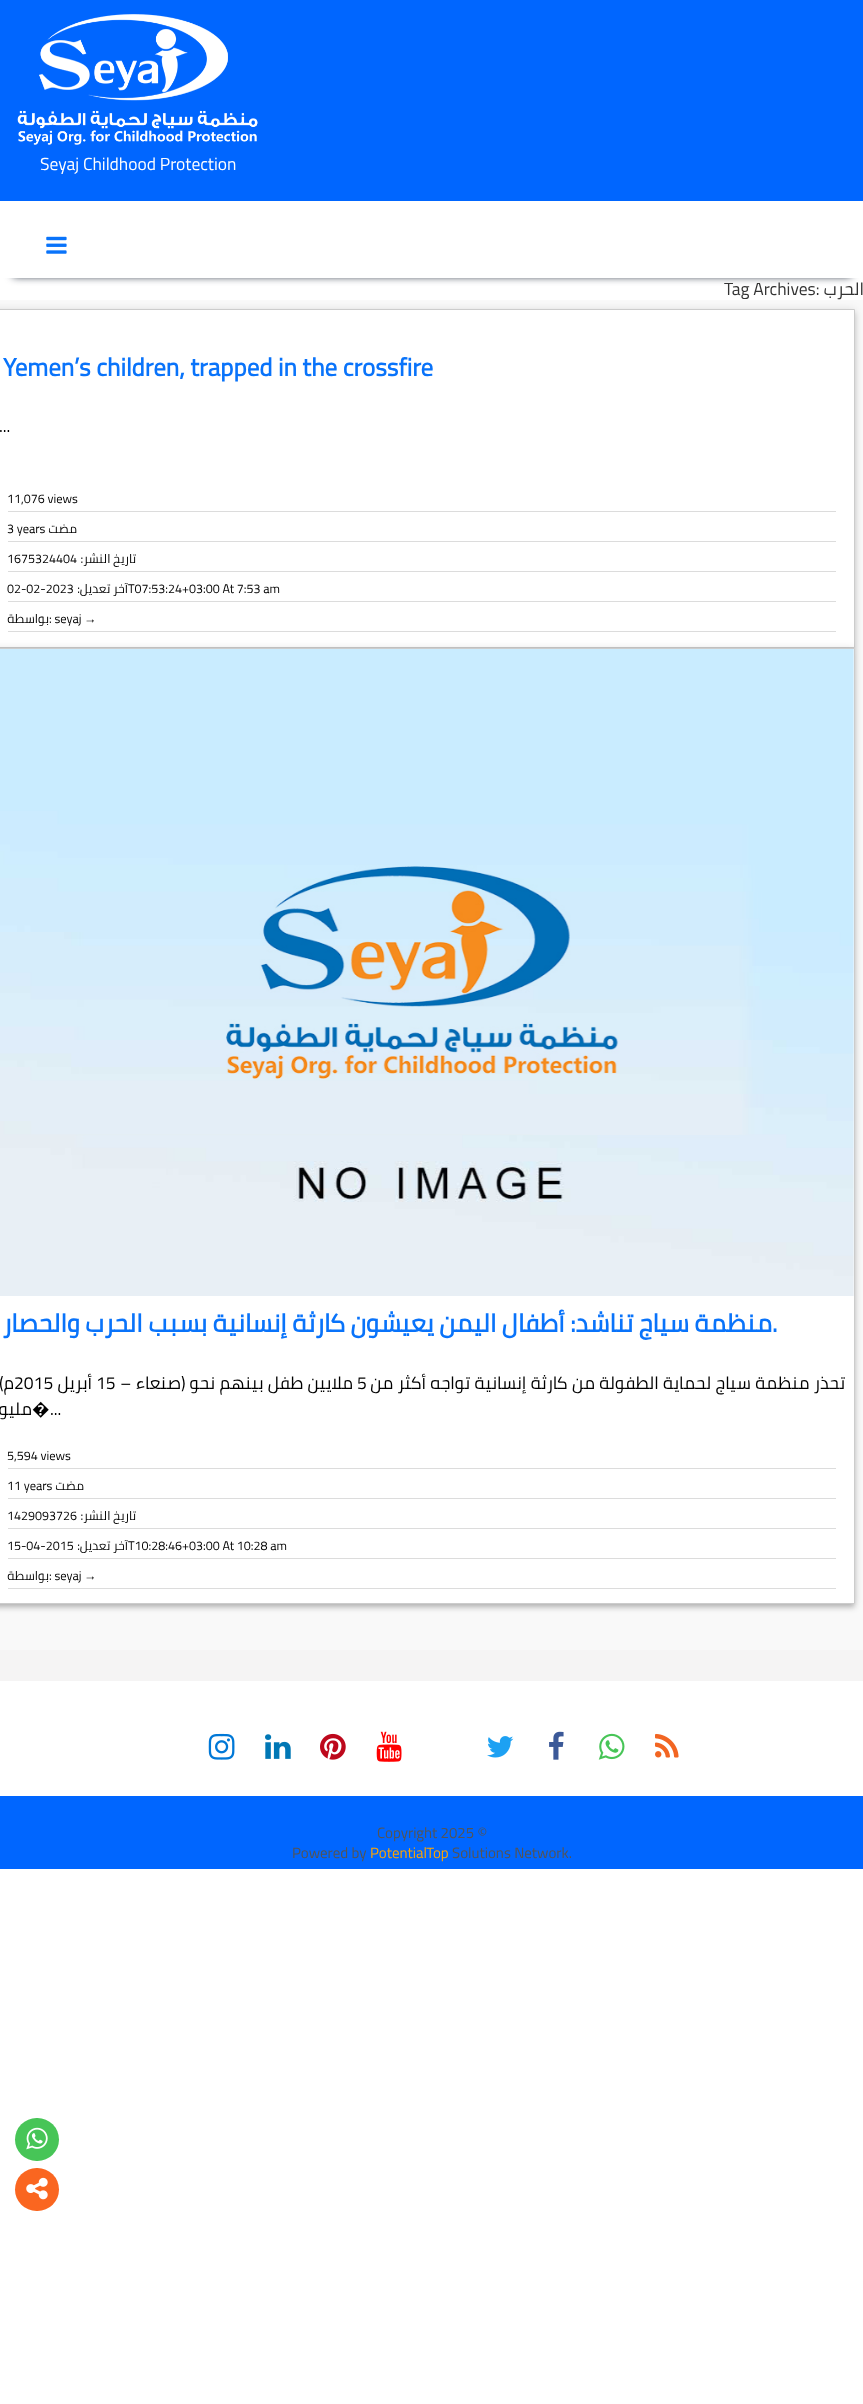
async function draw(canvas) {
  canvas.width = 863
  canvas.height = 2404
  const ctx = canvas.getContext('2d')
  ctx.miterLimit = 4
  ctx.fontKerning = 'normal'
  async function loadImage(src) {
    const img = new Image()
    img.src = src
    await img.decode()
    return img
  }

  ctx.fillStyle = '#fff'
  ctx.fillRect(0, 0, 863, 2404)
  ctx.fillStyle = '#000b1d'
  ctx.filter = 'blur(4.5px)'
  ctx.beginPath()
  ctx.rect(13, 24, 838, 252)
  ctx.fill()
  ctx.filter = 'none'
  ctx.fillStyle = '#06f'
  ctx.fillRect(0, 0, 863, 201)
  ctx.drawImage(await loadImage('image0.png'), 17, 14, 241, 131)
  ctx.font = '17.5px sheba'
  ctx.fillStyle = '#fff'
  ctx.fillText('Seyaj Childhood Protection', 40, 170)
  ctx.fillRect(3, 201, 858, 77)
  ctx.drawImage(await loadImage('image1.png'), 46, 236, 21, 18)
  ctx.fillStyle = '#f5f4f4'
  ctx.fillRect(0, 1650, 863, 31)
  ctx.fillStyle = '#333'
  ctx.fillText('Tag Archives:', 724, 295)
  ctx.direction = 'rtl'
  ctx.fillText('الحرب', 864, 295)
  ctx.fillStyle = '#f9f9f9'
  ctx.fillRect(0, 300, 863, 1350)
  ctx.fillStyle = '#0000001f'
  ctx.filter = 'blur(5px)'
  ctx.beginPath()
  ctx.rect(-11, 310, 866, 339)
  ctx.fill()
  ctx.filter = 'none'
  ctx.fillStyle = '#00000024'
  ctx.filter = 'blur(2.5px)'
  ctx.beginPath()
  ctx.rect(-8, 313, 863, 338)
  ctx.fill()
  ctx.filter = 'none'
  ctx.fillStyle = '#fff'
  ctx.beginPath()
  ctx.rect(-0.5, 309.5, 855, 338)
  ctx.fill()
  ctx.strokeStyle = '#ccc'
  ctx.stroke()
  ctx.direction = 'ltr'
  ctx.font = 'bold 25px sheba'
  ctx.fillStyle = '#0973fa'
  ctx.fillText('Yemen’s children, trapped in the crossfire', 3, 376)
  ctx.font = '17.5px sheba'
  ctx.fillStyle = '#000'
  ctx.fillText('...', -1, 432)
  ctx.fillStyle = '#dcdcdc'
  ctx.fillRect(8, 511, 828, 1)
  ctx.font = '12.5px sheba'
  ctx.fillStyle = '#000'
  ctx.fillText('11,076 views', 7, 503)
  ctx.fillStyle = '#dcdcdc'
  ctx.fillRect(8, 541, 828, 1)
  ctx.fillStyle = '#000'
  ctx.fillText('3 years', 7, 533)
  ctx.direction = 'rtl'
  ctx.fillText('مضت', 77, 533)
  ctx.fillStyle = '#dcdcdc'
  ctx.fillRect(8, 571, 828, 1)
  ctx.direction = 'ltr'
  ctx.fillStyle = '#000'
  ctx.fillText('1675324404', 7, 563)
  ctx.direction = 'rtl'
  ctx.fillText('تاريخ النشر:', 136, 563)
  ctx.fillStyle = '#dcdcdc'
  ctx.fillRect(8, 601, 828, 1)
  ctx.direction = 'ltr'
  ctx.fillStyle = '#000'
  ctx.fillText('02-02-2023', 7, 593)
  ctx.direction = 'rtl'
  ctx.fillText('آخر تعديل:', 128, 593)
  ctx.direction = 'ltr'
  ctx.fillText('T07:53:24+03:00 At 7:53 am', 128, 593)
  ctx.fillStyle = '#dcdcdc'
  ctx.fillRect(8, 631, 828, 1)
  ctx.direction = 'rtl'
  ctx.fillStyle = '#000'
  ctx.fillText('بواسطة', 49, 623)
  ctx.direction = 'ltr'
  ctx.fillText(': seyaj', 49, 623)
  ctx.font = '12.5px Liberation Sans'
  ctx.fillText('→', 84, 623)
  ctx.fillStyle = '#0000001f'
  ctx.filter = 'blur(5px)'
  ctx.beginPath()
  ctx.rect(-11, 649, 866, 956)
  ctx.fill()
  ctx.filter = 'none'
  ctx.fillStyle = '#00000024'
  ctx.filter = 'blur(2.5px)'
  ctx.beginPath()
  ctx.rect(-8, 651, 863, 957)
  ctx.fill()
  ctx.filter = 'none'
  ctx.fillStyle = '#0000001a'
  ctx.filter = 'blur(2px)'
  ctx.beginPath()
  ctx.rect(-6, 654, 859, 951)
  ctx.fill()
  ctx.filter = 'none'
  ctx.fillStyle = '#fff'
  ctx.beginPath()
  ctx.rect(-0.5, 648.5, 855, 955)
  ctx.fill()
  ctx.stroke()
  ctx.drawImage(await loadImage('image2.png'), 0, 649, 854, 647)
  ctx.direction = 'rtl'
  ctx.font = 'bold 25px sheba'
  ctx.fillStyle = '#0973fa'
  ctx.fillText('منظمة سياج تناشد: أطفال اليمن يعيشون كارثة إنسانية بسبب الحرب والحصار', 772, 1332)
  ctx.direction = 'ltr'
  ctx.fillText('.', 772, 1332)
  ctx.font = '17.5px sheba'
  ctx.fillStyle = '#000'
  ctx.fillText('(', -1, 1389)
  ctx.direction = 'rtl'
  ctx.fillText('م', 14, 1389)
  ctx.direction = 'ltr'
  ctx.fillText('2015', 14, 1389)
  ctx.direction = 'rtl'
  ctx.fillText('أبريل', 92, 1389)
  ctx.direction = 'ltr'
  ctx.fillText('15', 96, 1389)
  ctx.wordSpacing = '0.5px'
  ctx.direction = 'rtl'
  ctx.fillText('صنعاء –', 181, 1389)
  ctx.wordSpacing = '0px'
  ctx.direction = 'ltr'
  ctx.fillText(')', 181, 1389)
  ctx.wordSpacing = '0.5px'
  ctx.direction = 'rtl'
  ctx.fillText('ملايين طفل بينهم نحو', 353, 1389)
  ctx.wordSpacing = '0px'
  ctx.direction = 'ltr'
  ctx.fillText('5', 357, 1389)
  ctx.wordSpacing = '0.5px'
  ctx.direction = 'rtl'
  ctx.fillText('تحذر منظمة سياج لحماية الطفولة من كارثة إنسانية تواجه أكثر من', 845, 1389)
  ctx.wordSpacing = '0px'
  ctx.fillText('مليو', 32, 1415)
  ctx.direction = 'ltr'
  ctx.font = '17.5px Noto Sans'
  ctx.fillText('�', 32, 1415)
  ctx.font = '17.5px sheba'
  ctx.fillText('...', 50, 1415)
  ctx.fillStyle = '#dcdcdc'
  ctx.fillRect(8, 1468, 828, 1)
  ctx.font = '12.5px sheba'
  ctx.fillStyle = '#000'
  ctx.fillText('5,594 views', 7, 1460)
  ctx.fillStyle = '#dcdcdc'
  ctx.fillRect(8, 1498, 828, 1)
  ctx.fillStyle = '#000'
  ctx.fillText('11 years', 7, 1490)
  ctx.direction = 'rtl'
  ctx.fillText('مضت', 84, 1490)
  ctx.fillStyle = '#dcdcdc'
  ctx.fillRect(8, 1528, 828, 1)
  ctx.direction = 'ltr'
  ctx.fillStyle = '#000'
  ctx.fillText('1429093726', 7, 1520)
  ctx.direction = 'rtl'
  ctx.fillText('تاريخ النشر:', 136, 1520)
  ctx.fillStyle = '#dcdcdc'
  ctx.fillRect(8, 1558, 828, 1)
  ctx.direction = 'ltr'
  ctx.fillStyle = '#000'
  ctx.fillText('15-04-2015', 7, 1550)
  ctx.direction = 'rtl'
  ctx.fillText('آخر تعديل:', 128, 1550)
  ctx.direction = 'ltr'
  ctx.fillText('T10:28:46+03:00 At 10:28 am', 128, 1550)
  ctx.fillStyle = '#dcdcdc'
  ctx.fillRect(8, 1588, 828, 1)
  ctx.direction = 'rtl'
  ctx.fillStyle = '#000'
  ctx.fillText('بواسطة', 49, 1580)
  ctx.direction = 'ltr'
  ctx.fillText(': seyaj', 49, 1580)
  ctx.font = '12.5px Liberation Sans'
  ctx.fillText('→', 84, 1580)
  ctx.drawImage(await loadImage('image3.png'), 208, 1733, 27, 27)
  ctx.drawImage(await loadImage('image4.png'), 265, 1734, 26, 25)
  ctx.drawImage(await loadImage('image5.png'), 320, 1733, 26, 27)
  ctx.drawImage(await loadImage('image6.png'), 376, 1731, 26, 31)
  ctx.drawImage(await loadImage('image7.png'), 487, 1736, 27, 22)
  ctx.drawImage(await loadImage('image8.png'), 549, 1731, 15, 29)
  ctx.drawImage(await loadImage('image9.png'), 598, 1733, 27, 27)
  ctx.drawImage(await loadImage('image10.png'), 655, 1733, 24, 25)
  ctx.fillStyle = '#06f'
  ctx.fillRect(0, 1796, 863, 73)
  ctx.font = '15px sheba'
  ctx.fillStyle = '#545454'
  ctx.fillText('Copyright 2025 ©', 377, 1838)
  ctx.fillText('Powered by', 292, 1858)
  ctx.fillStyle = '#ffa500'
  ctx.fillText('PotentialTop', 370, 1858)
  ctx.fillStyle = '#545454'
  ctx.fillText('Solutions Network.', 452, 1858)
  ctx.fillStyle = '#47c557'
  ctx.beginPath()
  ctx.roundRect(15, 2118, 44, 43, 21.5)
  ctx.fill()
  ctx.drawImage(await loadImage('image11.png'), 26, 2127, 22, 23)
  ctx.fillStyle = '#fa6620'
  ctx.beginPath()
  ctx.roundRect(15, 2168, 44, 43, 21.5)
  ctx.fill()
  ctx.drawImage(await loadImage('image12.png'), 26, 2177, 22, 23)
}

draw(document.querySelector('canvas'))
